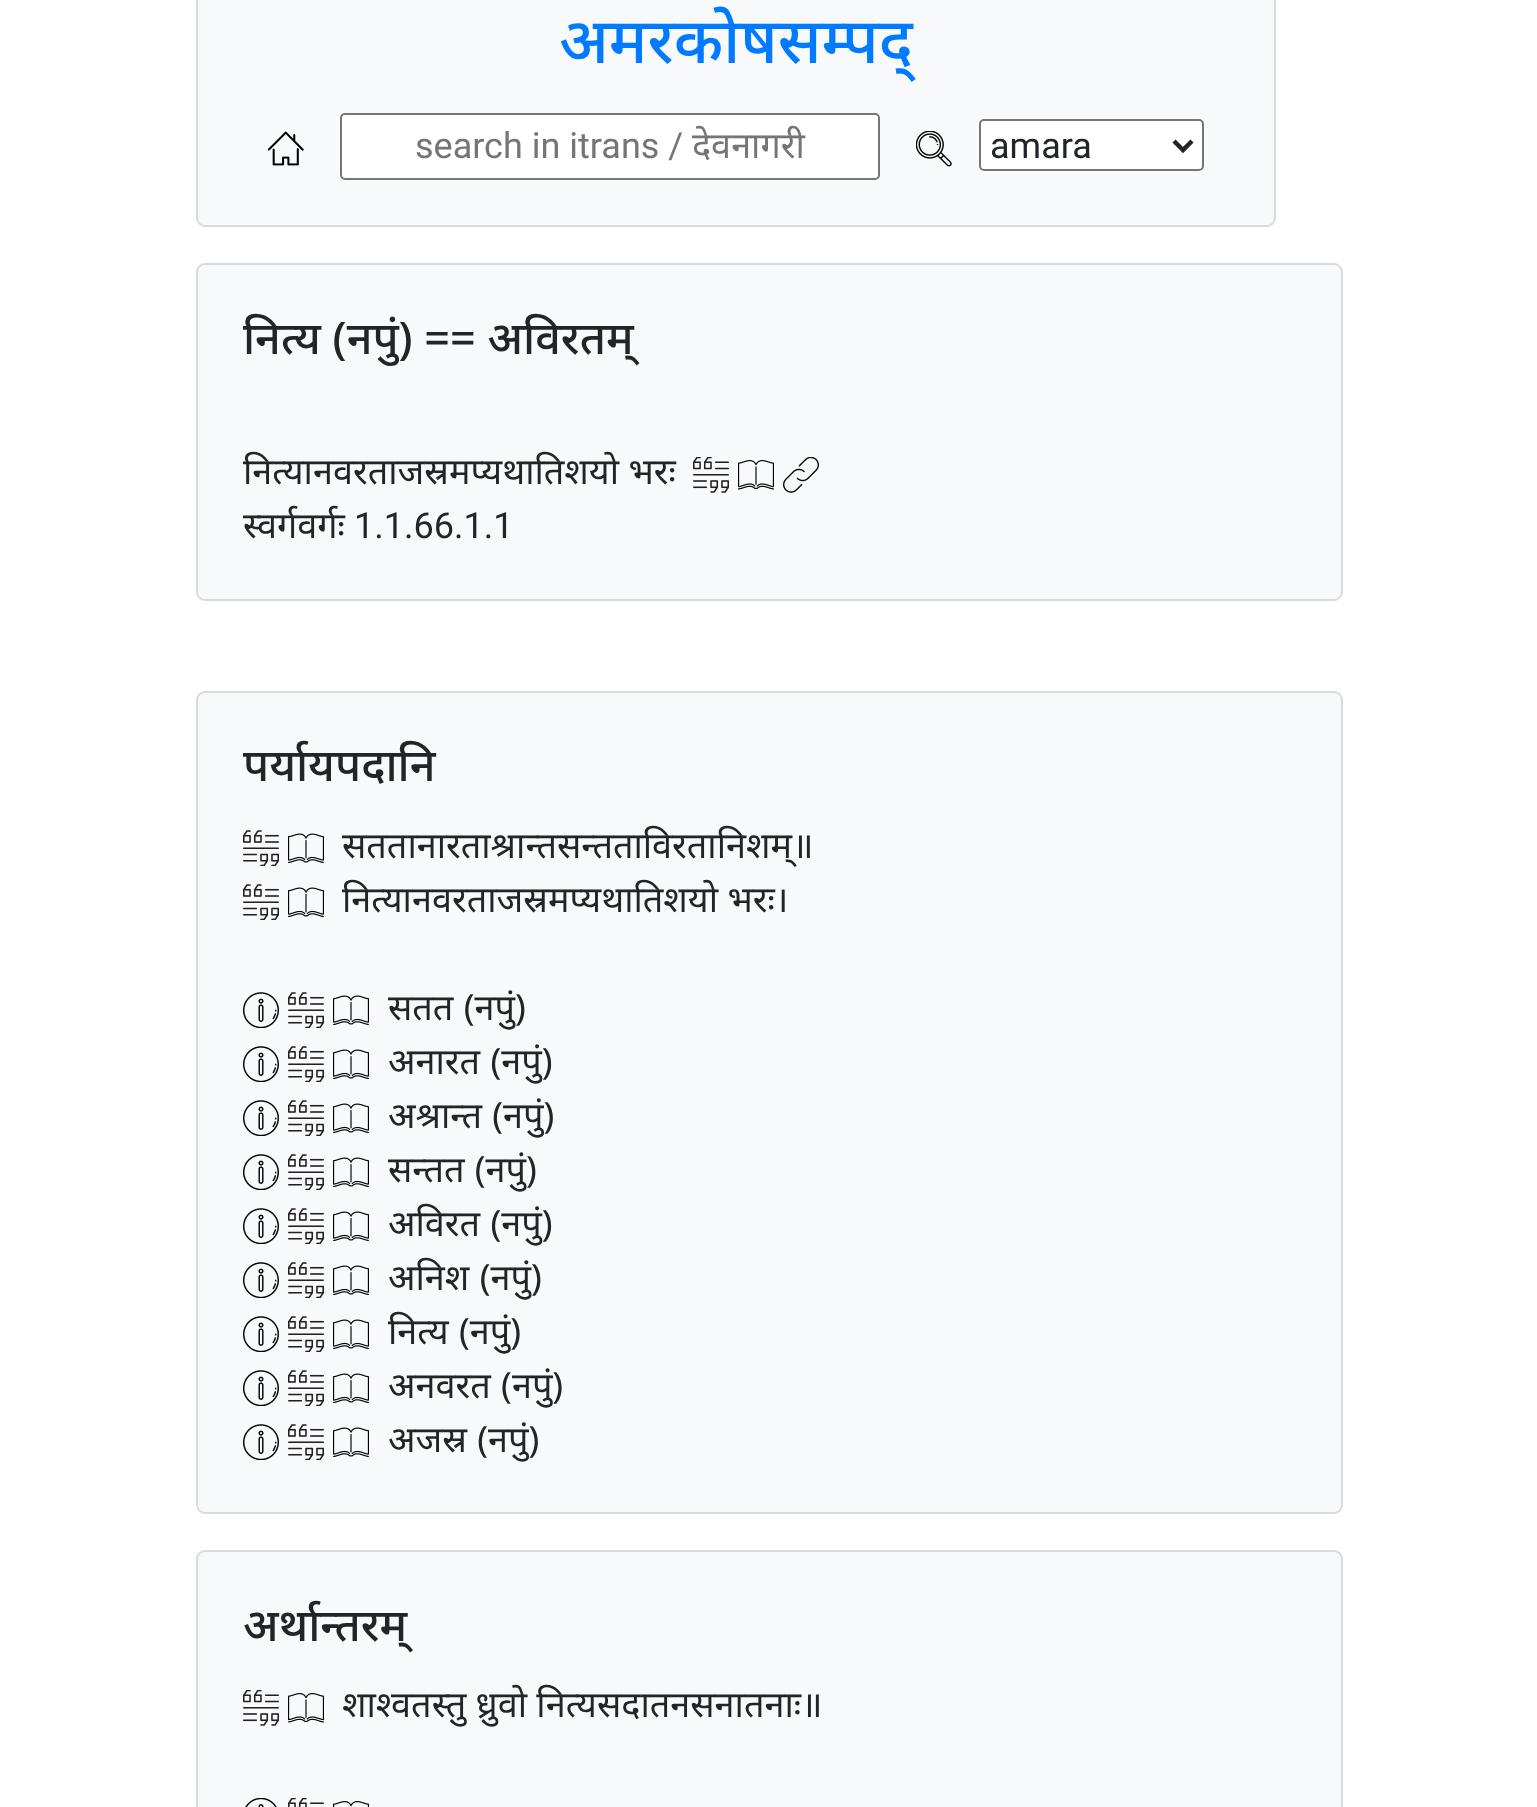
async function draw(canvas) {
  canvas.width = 1537
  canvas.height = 1807
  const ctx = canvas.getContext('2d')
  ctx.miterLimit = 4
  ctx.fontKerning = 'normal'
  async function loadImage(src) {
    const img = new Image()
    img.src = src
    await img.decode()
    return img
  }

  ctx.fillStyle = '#fff'
  ctx.fillRect(0, 0, 1537, 1807)
  ctx.fillStyle = '#f8f9fa'
  ctx.beginPath()
  ctx.roundRect(196, -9, 1080, 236, 9)
  ctx.fill()
  ctx.beginPath()
  ctx.roundRect(197, -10, 1078, 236, 8)
  ctx.strokeStyle = '#0000001f'
  ctx.lineWidth = 2
  ctx.stroke()
  ctx.font = '500 63px Noto Sans'
  ctx.fillStyle = '#007bff'
  ctx.fillText('अमरकोषसम्पद्', 559, 63)
  ctx.drawImage(await loadImage('image0.png'), 268, 131, 36, 35)
  ctx.fillStyle = '#fff'
  ctx.beginPath()
  ctx.roundRect(341, 114, 538, 65, 4)
  ctx.fill()
  ctx.strokeStyle = '#767676'
  ctx.stroke()
  ctx.font = '36px Roboto'
  ctx.fillStyle = '#757575'
  ctx.fillText('search in itrans /', 415, 158)
  ctx.font = '36px Noto Sans'
  ctx.fillText('देवनागरी', 692, 158)
  ctx.drawImage(await loadImage('image1.png'), 916, 131, 36, 36)
  ctx.fillStyle = '#fff'
  ctx.beginPath()
  ctx.roundRect(980, 120, 223, 50, 4)
  ctx.fill()
  ctx.stroke()
  ctx.beginPath()
  ctx.moveTo(1174, 141)
  ctx.lineTo(1183, 150)
  ctx.lineTo(1192, 141)
  ctx.strokeStyle = '#212529'
  ctx.lineWidth = 4.5
  ctx.stroke()
  ctx.font = '36px Roboto'
  ctx.fillStyle = '#212529'
  ctx.fillText('amara', 990, 158)
  ctx.fillStyle = '#f8f9fa'
  ctx.beginPath()
  ctx.roundRect(196, 263, 1147, 338, 9)
  ctx.fill()
  ctx.beginPath()
  ctx.roundRect(197, 264, 1145, 336, 8)
  ctx.strokeStyle = '#0000001f'
  ctx.lineWidth = 2
  ctx.stroke()
  ctx.font = '500 45px Noto Sans'
  ctx.fillStyle = '#212529'
  ctx.fillText('नित्य (नपुं) == अविरतम्', 243, 354)
  ctx.font = '36px Noto Sans'
  ctx.fillText('नित्यानवरताजस्रमप्यथातिशयो भरः', 243, 484)
  ctx.drawImage(await loadImage('image2.png'), 693, 457, 36, 36)
  ctx.drawImage(await loadImage('image3.png'), 738, 460, 36, 30)
  ctx.drawImage(await loadImage('image4.png'), 783, 457, 36, 36)
  ctx.fillText('स्वर्गवर्गः', 243, 538)
  ctx.font = '36px Roboto'
  ctx.fillText('1.1.66.1.1', 354, 538)
  ctx.fillStyle = '#f8f9fa'
  ctx.beginPath()
  ctx.roundRect(196, 691, 1147, 823, 9)
  ctx.fill()
  ctx.beginPath()
  ctx.roundRect(197, 692, 1145, 821, 8)
  ctx.stroke()
  ctx.font = '500 45px Noto Sans'
  ctx.fillStyle = '#212529'
  ctx.fillText('पर्यायपदानि', 243, 781)
  ctx.drawImage(await loadImage('image5.png'), 243, 830, 36, 36)
  ctx.drawImage(await loadImage('image6.png'), 288, 833, 36, 30)
  ctx.font = '36px Noto Sans'
  ctx.fillText('सततानारताश्रान्तसन्तताविरतानिशम्॥', 342, 858)
  ctx.drawImage(await loadImage('image5.png'), 243, 884, 36, 36)
  ctx.drawImage(await loadImage('image6.png'), 288, 887, 36, 30)
  ctx.fillText('नित्यानवरताजस्रमप्यथातिशयो भरः।', 342, 912)
  ctx.drawImage(await loadImage('image7.png'), 243, 992, 36, 36)
  ctx.drawImage(await loadImage('image5.png'), 288, 992, 36, 36)
  ctx.drawImage(await loadImage('image6.png'), 333, 995, 36, 30)
  ctx.wordSpacing = '1px'
  ctx.fillText('सतत (नपुं)', 388, 1020)
  ctx.drawImage(await loadImage('image7.png'), 243, 1046, 36, 36)
  ctx.drawImage(await loadImage('image5.png'), 288, 1046, 36, 36)
  ctx.drawImage(await loadImage('image6.png'), 333, 1049, 36, 30)
  ctx.fillText('अनारत (नपुं)', 388, 1074)
  ctx.drawImage(await loadImage('image7.png'), 243, 1100, 36, 36)
  ctx.drawImage(await loadImage('image5.png'), 288, 1100, 36, 36)
  ctx.drawImage(await loadImage('image6.png'), 333, 1103, 36, 30)
  ctx.fillText('अश्रान्त (नपुं)', 388, 1128)
  ctx.drawImage(await loadImage('image7.png'), 243, 1154, 36, 36)
  ctx.drawImage(await loadImage('image5.png'), 288, 1154, 36, 36)
  ctx.drawImage(await loadImage('image6.png'), 333, 1157, 36, 30)
  ctx.fillText('सन्तत (नपुं)', 388, 1182)
  ctx.drawImage(await loadImage('image7.png'), 243, 1208, 36, 36)
  ctx.drawImage(await loadImage('image5.png'), 288, 1208, 36, 36)
  ctx.drawImage(await loadImage('image6.png'), 333, 1211, 36, 30)
  ctx.fillText('अविरत (नपुं)', 388, 1236)
  ctx.drawImage(await loadImage('image7.png'), 243, 1262, 36, 36)
  ctx.drawImage(await loadImage('image5.png'), 288, 1262, 36, 36)
  ctx.drawImage(await loadImage('image6.png'), 333, 1265, 36, 30)
  ctx.fillText('अनिश (नपुं)', 388, 1290)
  ctx.drawImage(await loadImage('image7.png'), 243, 1316, 36, 36)
  ctx.drawImage(await loadImage('image5.png'), 288, 1316, 36, 36)
  ctx.drawImage(await loadImage('image6.png'), 333, 1319, 36, 30)
  ctx.fillText('नित्य (नपुं)', 388, 1344)
  ctx.drawImage(await loadImage('image7.png'), 243, 1370, 36, 36)
  ctx.drawImage(await loadImage('image5.png'), 288, 1370, 36, 36)
  ctx.drawImage(await loadImage('image6.png'), 333, 1373, 36, 30)
  ctx.fillText('अनवरत (नपुं)', 388, 1398)
  ctx.drawImage(await loadImage('image7.png'), 243, 1424, 36, 36)
  ctx.drawImage(await loadImage('image5.png'), 288, 1424, 36, 36)
  ctx.drawImage(await loadImage('image6.png'), 333, 1427, 36, 30)
  ctx.fillText('अजस्र (नपुं)', 388, 1452)
  ctx.fillStyle = '#f8f9fa'
  ctx.beginPath()
  ctx.roundRect(196, 1550, 1147, 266, 9)
  ctx.fill()
  ctx.beginPath()
  ctx.roundRect(197, 1551, 1145, 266, 8)
  ctx.stroke()
  ctx.wordSpacing = '0px'
  ctx.font = '500 45px Noto Sans'
  ctx.fillStyle = '#212529'
  ctx.fillText('अर्थान्तरम्', 243, 1641)
  ctx.drawImage(await loadImage('image2.png'), 243, 1690, 36, 36)
  ctx.drawImage(await loadImage('image3.png'), 288, 1693, 36, 30)
  ctx.font = '36px Noto Sans'
  ctx.fillText('शाश्वतस्तु ध्रुवो नित्यसदातनसनातनाः॥', 342, 1717)
  ctx.drawImage(await loadImage('image8.png'), 245, 1798, 32, 9)
  ctx.drawImage(await loadImage('image9.png'), 288, 1798, 36, 9)
  ctx.drawImage(await loadImage('image10.png'), 333, 1801, 36, 6)
}

draw(document.querySelector('canvas'))
